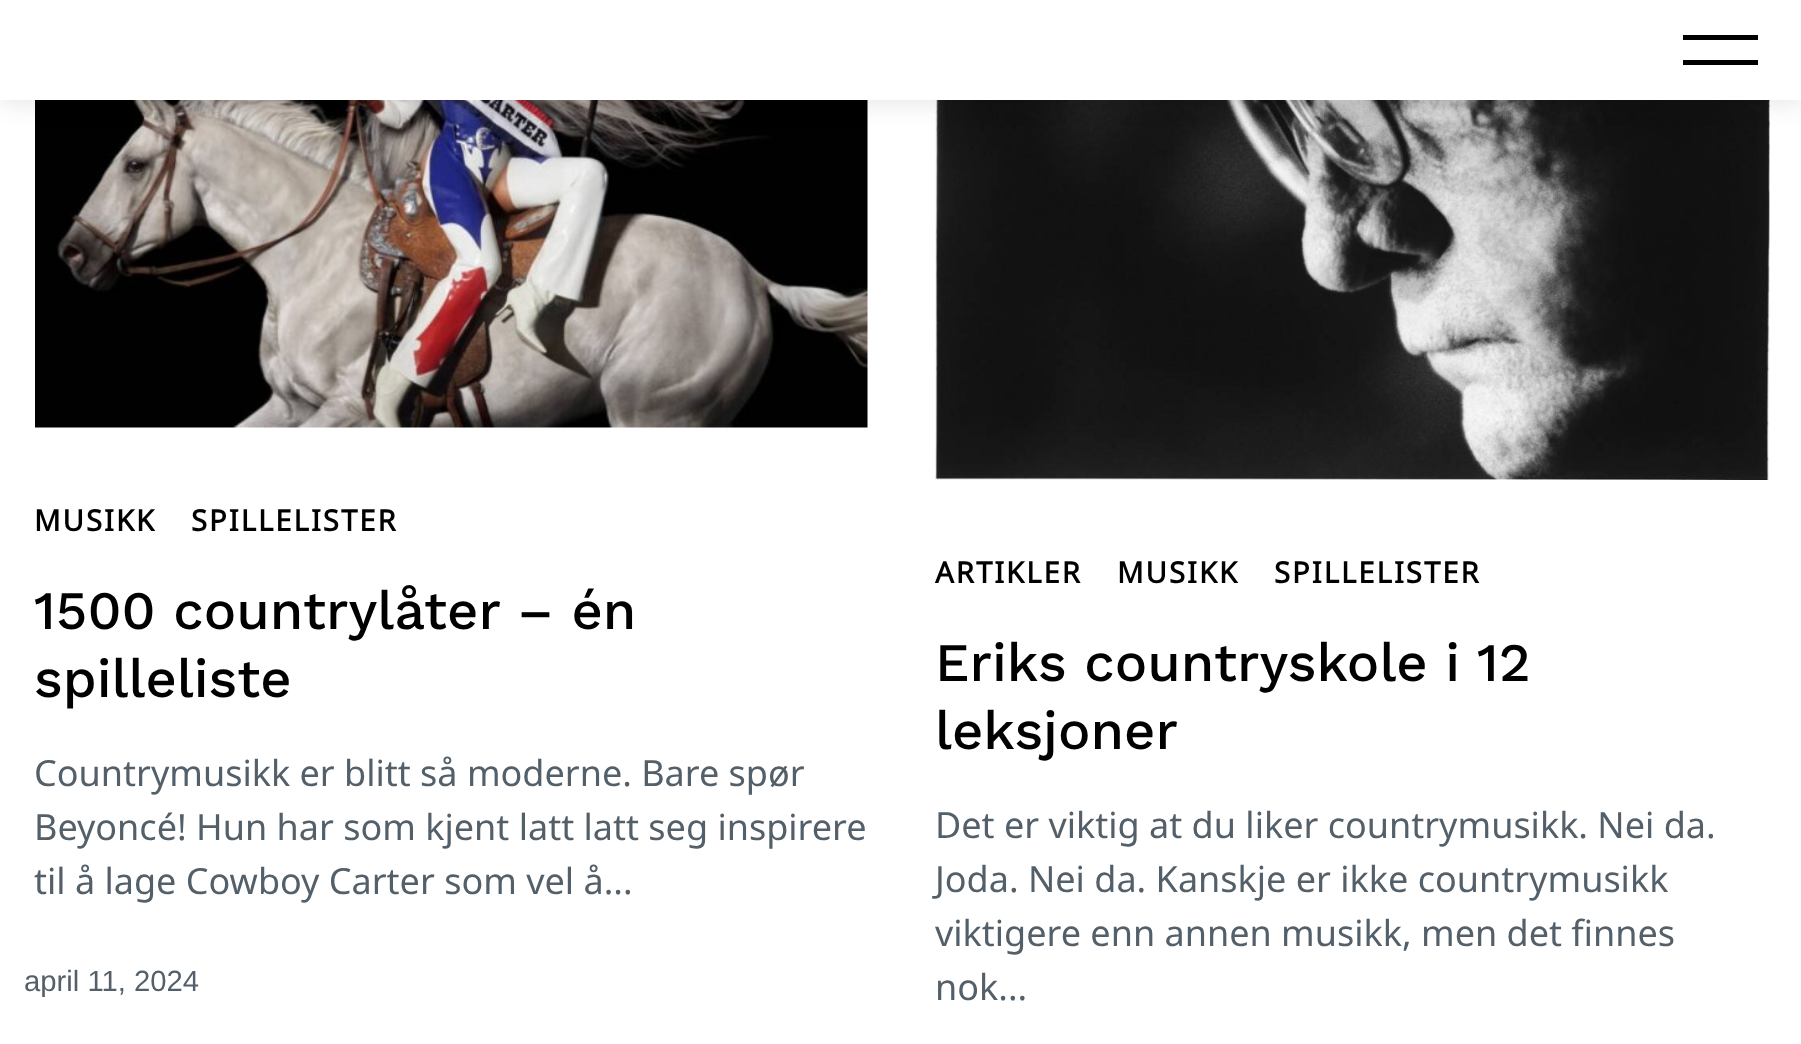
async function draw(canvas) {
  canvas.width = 1801
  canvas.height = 1044
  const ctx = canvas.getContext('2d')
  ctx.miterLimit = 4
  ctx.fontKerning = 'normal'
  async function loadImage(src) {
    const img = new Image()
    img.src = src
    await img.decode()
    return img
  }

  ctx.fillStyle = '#fff'
  ctx.fillRect(0, 0, 1801, 1044)
  ctx.drawImage(await loadImage('image0.png'), 35, 100, 833, 328)
  ctx.drawImage(await loadImage('image1.png'), 935, 100, 835, 380)
  ctx.fillStyle = '#0000001a'
  ctx.filter = 'blur(12.5px)'
  ctx.beginPath()
  ctx.rect(0, 3, 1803, 100)
  ctx.fill()
  ctx.filter = 'none'
  ctx.fillStyle = '#fff'
  ctx.fillRect(0, 0, 1801, 100)
  ctx.fillStyle = '#000'
  ctx.fillRect(1683, 35, 75, 5)
  ctx.fillRect(1683, 60, 75, 5)
  ctx.letterSpacing = '2px'
  ctx.font = 'bold 29.25px Noto Sans'
  ctx.fillText('MUSIKK', 34, 531)
  ctx.fillText('SPILLELISTER', 191, 531)
  ctx.letterSpacing = '0px'
  ctx.font = '500 54.25px Work Sans'
  ctx.fillText('1500 countrylåter – én', 34, 629)
  ctx.fillText('spilleliste', 34, 697)
  ctx.font = '36px Noto Sans'
  ctx.fillStyle = '#535f69'
  ctx.fillText('Countrymusikk er blitt så moderne. Bare spør', 34, 786)
  ctx.fillText('Beyoncé! Hun har som kjent latt latt seg inspirere', 34, 840)
  ctx.fillText('til å lage Cowboy Carter som vel å...', 34, 894)
  ctx.font = '29.25px Liberation Sans'
  ctx.fillText('april 11, 2024', 24, 991)
  ctx.letterSpacing = '2px'
  ctx.font = 'bold 29.25px Noto Sans'
  ctx.fillStyle = '#000'
  ctx.fillText('ARTIKLER', 935, 583)
  ctx.fillText('MUSIKK', 1117, 583)
  ctx.fillText('SPILLELISTER', 1274, 583)
  ctx.letterSpacing = '0px'
  ctx.font = '500 54.25px Work Sans'
  ctx.fillText('Eriks countryskole i 12', 935, 681)
  ctx.fillText('leksjoner', 935, 749)
  ctx.font = '36px Noto Sans'
  ctx.fillStyle = '#535f69'
  ctx.fillText('Det er viktig at du liker countrymusikk. Nei da.', 935, 838)
  ctx.fillText('Joda. Nei da. Kanskje er ikke countrymusikk', 935, 892)
  ctx.fillText('viktigere enn annen musikk, men det finnes', 935, 946)
  ctx.fillText('nok...', 935, 1000)
}

draw(document.querySelector('canvas'))
